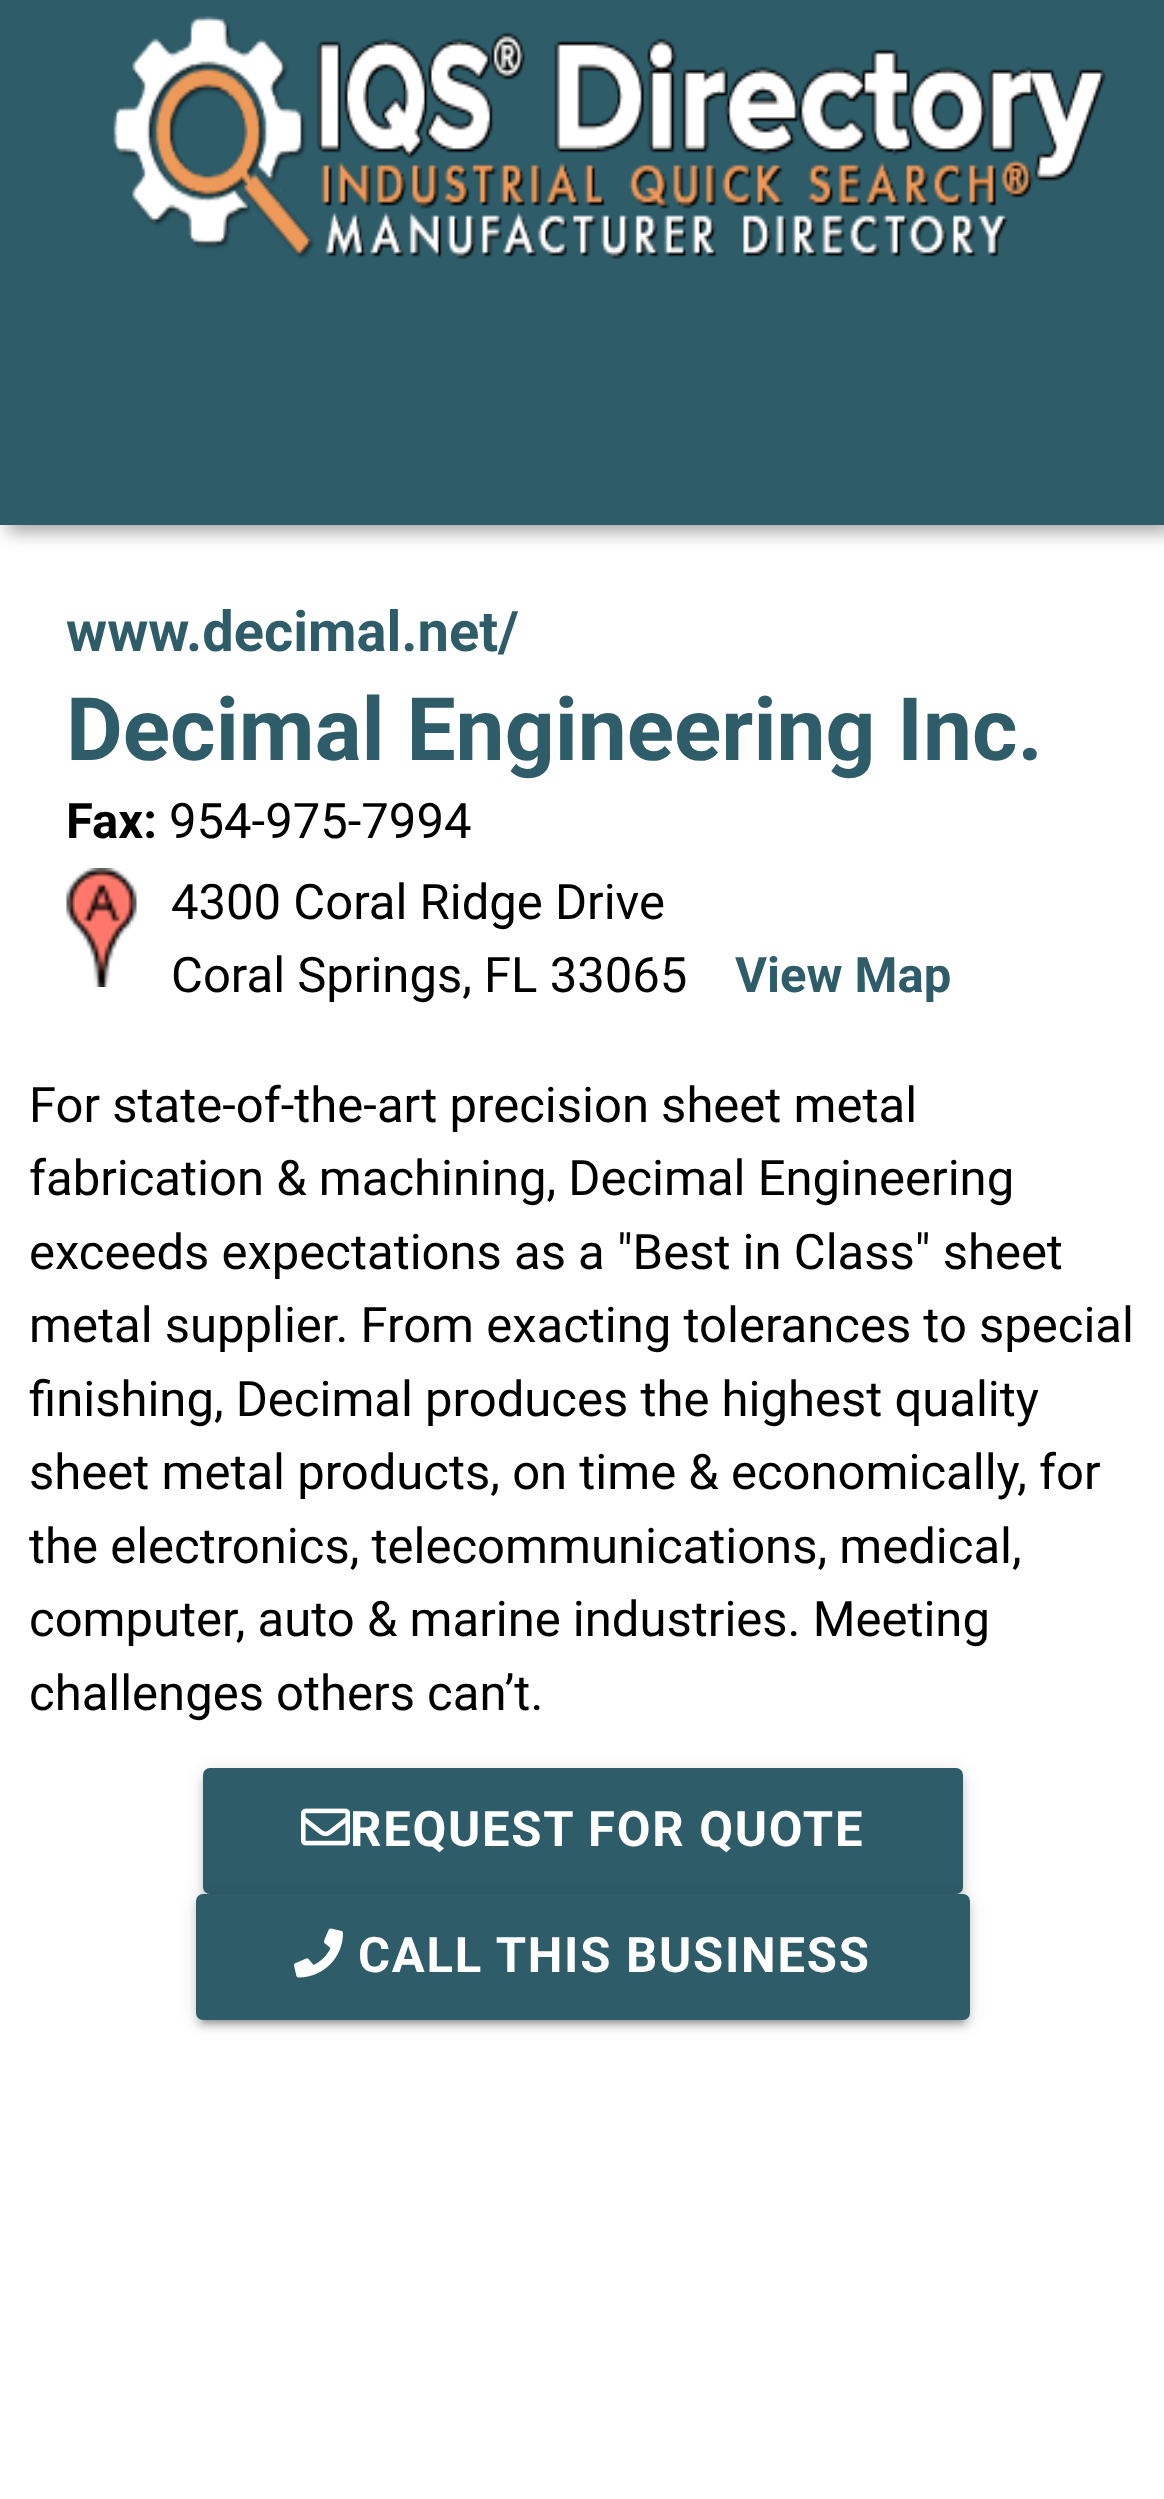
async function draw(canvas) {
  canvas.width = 1164
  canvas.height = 2499
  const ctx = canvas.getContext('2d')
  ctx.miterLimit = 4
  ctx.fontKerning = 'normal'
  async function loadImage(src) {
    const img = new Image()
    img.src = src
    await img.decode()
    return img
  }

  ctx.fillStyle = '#fff'
  ctx.fillRect(0, 0, 1164, 2499)
  ctx.fillStyle = '#3232326e'
  ctx.filter = 'blur(9px)'
  ctx.beginPath()
  ctx.rect(7, 7, 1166, 525)
  ctx.fill()
  ctx.filter = 'none'
  ctx.fillStyle = '#2e5c69'
  ctx.fillRect(0, 0, 1164, 525)
  ctx.drawImage(await loadImage('image0.png'), 113, 16, 993, 243)
  ctx.font = 'bold 56px Roboto'
  ctx.fillText('www.decimal.net/', 66, 651)
  ctx.font = 'bold 87.5px Roboto'
  ctx.fillText('Decimal Engineering Inc.', 66, 760)
  ctx.font = 'bold 49px Roboto'
  ctx.fillStyle = '#000'
  ctx.fillText('Fax:', 66, 838)
  ctx.font = '49px Roboto'
  ctx.fillText('954-975-7994', 169, 838)
  ctx.drawImage(await loadImage('image1.png'), 66, 868, 71, 119)
  ctx.fillText('4300 Coral Ridge Drive', 171, 919)
  ctx.fillText('Coral Springs, FL 33065', 171, 992)
  ctx.font = 'bold 49px Roboto'
  ctx.fillStyle = '#2e5c69'
  ctx.fillText('View Map', 735, 992)
  ctx.font = '49px Roboto'
  ctx.fillStyle = '#000'
  ctx.fillText('For state-of-the-art precision sheet metal', 29, 1122)
  ctx.fillText('fabrication & machining, Decimal Engineering', 29, 1195)
  ctx.fillText('exceeds expectations as a "Best in Class" sheet', 29, 1269)
  ctx.fillText('metal supplier. From exacting tolerances to special', 29, 1342)
  ctx.fillText('finishing, Decimal produces the highest quality', 29, 1416)
  ctx.fillText('sheet metal products, on time & economically, for', 29, 1489)
  ctx.fillText('the electronics, telecommunications, medical,', 29, 1563)
  ctx.fillText('computer, auto & marine industries. Meeting', 29, 1636)
  ctx.fillText('challenges others can’t.', 29, 1710)
  ctx.fillStyle = '#00000033'
  ctx.filter = 'blur(2px)'
  ctx.beginPath()
  ctx.rect(210, 1785, 746, 112)
  ctx.fill()
  ctx.filter = 'none'
  ctx.fillStyle = '#0000001f'
  ctx.filter = 'blur(9px)'
  ctx.beginPath()
  ctx.roundRect(203, 1771, 760, 126, 7)
  ctx.fill()
  ctx.filter = 'none'
  ctx.fillStyle = '#00000024'
  ctx.filter = 'blur(3.5px)'
  ctx.beginPath()
  ctx.roundRect(203, 1775, 760, 126, 7)
  ctx.fill()
  ctx.filter = 'none'
  ctx.fillStyle = '#2e5c69'
  ctx.beginPath()
  ctx.roundRect(203, 1768, 760, 126, 7)
  ctx.fill()
  ctx.drawImage(await loadImage('image2.png'), 301, 1808, 49, 38)
  ctx.letterSpacing = '1.75px'
  ctx.font = 'bold 49px Roboto'
  ctx.fillStyle = '#fff'
  ctx.fillText('REQUEST FOR QUOTE', 350, 1846)
  ctx.fillStyle = '#00000033'
  ctx.filter = 'blur(2px)'
  ctx.beginPath()
  ctx.rect(203, 1911, 760, 112)
  ctx.fill()
  ctx.filter = 'none'
  ctx.fillStyle = '#0000001f'
  ctx.filter = 'blur(9px)'
  ctx.beginPath()
  ctx.roundRect(196, 1897, 774, 126, 7)
  ctx.fill()
  ctx.filter = 'none'
  ctx.fillStyle = '#00000024'
  ctx.filter = 'blur(3.5px)'
  ctx.beginPath()
  ctx.roundRect(196, 1901, 774, 126, 7)
  ctx.fill()
  ctx.filter = 'none'
  ctx.fillStyle = '#2e5c69'
  ctx.beginPath()
  ctx.roundRect(196, 1894, 774, 126, 7)
  ctx.fill()
  ctx.drawImage(await loadImage('image3.png'), 294, 1928, 49, 50)
  ctx.fillStyle = '#fff'
  ctx.fillText('CALL THIS BUSINESS', 358, 1972)
}

draw(document.querySelector('canvas'))
